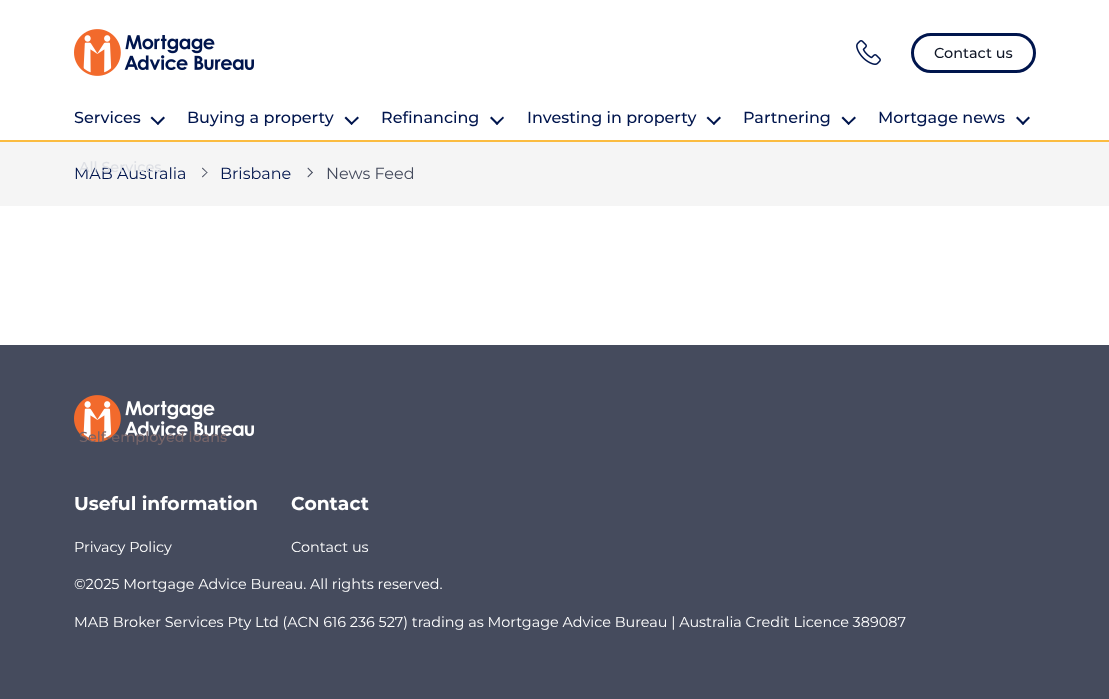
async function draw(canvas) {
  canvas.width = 1109
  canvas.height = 699
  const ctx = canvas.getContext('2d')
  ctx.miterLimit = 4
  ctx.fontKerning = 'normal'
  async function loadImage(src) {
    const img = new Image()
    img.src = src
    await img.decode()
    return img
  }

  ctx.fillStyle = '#fff'
  ctx.fillRect(0, 0, 1109, 699)
  ctx.fillStyle = '#fbbc41'
  ctx.fillRect(0, 140, 1109, 2)
  ctx.drawImage(await loadImage('image0.png'), 74, 29, 180, 47)
  ctx.drawImage(await loadImage('image1.png'), 856, 40, 25, 25)
  ctx.beginPath()
  ctx.roundRect(912.5, 34.5, 122, 37, 18.5)
  ctx.strokeStyle = '#00154d'
  ctx.lineWidth = 3
  ctx.stroke()
  ctx.font = '500 14.4px Montserrat'
  ctx.fillStyle = '#0f1626'
  ctx.fillText('Contact us', 934, 58)
  ctx.font = '500 16px Montserrat'
  ctx.fillStyle = '#00154d'
  ctx.fillText('Services', 74, 123)
  ctx.beginPath()
  ctx.moveTo(156.5, 123.5)
  ctx.lineTo(163.5, 116.5)
  ctx.lineTo(165, 118)
  ctx.lineTo(158, 125)
  ctx.closePath()
  ctx.fill()
  ctx.beginPath()
  ctx.moveTo(150.5, 118)
  ctx.lineTo(152, 116.5)
  ctx.lineTo(159, 123.5)
  ctx.lineTo(158, 125)
  ctx.closePath()
  ctx.fill()
  ctx.fillStyle = '#f5f5f5'
  ctx.fillRect(0, 142, 1109, 64)
  ctx.font = '16px Montserrat'
  ctx.fillStyle = '#00154d'
  ctx.fillText('MAB Australia', 74, 179)
  ctx.font = '500 14.4px Montserrat'
  ctx.fillStyle = '#dee0e5'
  ctx.fillText('All Services', 79, 172)
  ctx.fillStyle = '#454b5d'
  ctx.fillRect(0, 345, 1109, 354)
  ctx.drawImage(await loadImage('image2.png'), 74, 395, 180, 47)
  ctx.fillStyle = '#766569'
  ctx.fillText('Self-employed loans', 79, 442)
  ctx.font = '500 16px Montserrat'
  ctx.fillStyle = '#00154d'
  ctx.fillText('Buying a property', 187, 123)
  ctx.beginPath()
  ctx.moveTo(350.5, 123.5)
  ctx.lineTo(357.5, 116.5)
  ctx.lineTo(359, 118)
  ctx.lineTo(351.5, 125)
  ctx.closePath()
  ctx.fill()
  ctx.beginPath()
  ctx.moveTo(344.5, 118)
  ctx.lineTo(346, 116.5)
  ctx.lineTo(353, 123.5)
  ctx.lineTo(351.5, 125)
  ctx.closePath()
  ctx.fill()
  ctx.fillText('Refinancing', 381, 123)
  ctx.beginPath()
  ctx.moveTo(495.5, 123.5)
  ctx.lineTo(503, 116.5)
  ctx.lineTo(504, 118)
  ctx.lineTo(497, 125)
  ctx.closePath()
  ctx.fill()
  ctx.beginPath()
  ctx.moveTo(490, 118)
  ctx.lineTo(491.5, 116.5)
  ctx.lineTo(498.5, 123.5)
  ctx.lineTo(497, 125)
  ctx.closePath()
  ctx.fill()
  ctx.fillText('Investing in property', 527, 123)
  ctx.beginPath()
  ctx.moveTo(712.5, 123.5)
  ctx.lineTo(719.5, 116.5)
  ctx.lineTo(721, 118)
  ctx.lineTo(714, 125)
  ctx.closePath()
  ctx.fill()
  ctx.beginPath()
  ctx.moveTo(706.5, 118)
  ctx.lineTo(708, 116.5)
  ctx.lineTo(715, 123.5)
  ctx.lineTo(714, 125)
  ctx.closePath()
  ctx.fill()
  ctx.fillText('Partnering', 743, 123)
  ctx.beginPath()
  ctx.moveTo(847.5, 123.5)
  ctx.lineTo(854.5, 116.5)
  ctx.lineTo(856, 118)
  ctx.lineTo(848.5, 125)
  ctx.closePath()
  ctx.fill()
  ctx.beginPath()
  ctx.moveTo(841.5, 118)
  ctx.lineTo(843, 116.5)
  ctx.lineTo(850, 123.5)
  ctx.lineTo(848.5, 125)
  ctx.closePath()
  ctx.fill()
  ctx.fillText('Mortgage news', 878, 123)
  ctx.beginPath()
  ctx.moveTo(1021.5, 123.5)
  ctx.lineTo(1028.5, 116.5)
  ctx.lineTo(1030, 118)
  ctx.lineTo(1023, 125)
  ctx.closePath()
  ctx.fill()
  ctx.beginPath()
  ctx.moveTo(1016, 118)
  ctx.lineTo(1017.5, 116.5)
  ctx.lineTo(1024.5, 123.5)
  ctx.lineTo(1023, 125)
  ctx.closePath()
  ctx.fill()
  ctx.fillStyle = '#454b5d'
  ctx.beginPath()
  ctx.moveTo(202, 168.5)
  ctx.lineTo(202.5, 167.5)
  ctx.lineTo(207.5, 172.5)
  ctx.lineTo(207, 173)
  ctx.closePath()
  ctx.fill()
  ctx.beginPath()
  ctx.moveTo(202, 176.5)
  ctx.lineTo(207, 172)
  ctx.lineTo(207.5, 172.5)
  ctx.lineTo(202.5, 177.5)
  ctx.closePath()
  ctx.fill()
  ctx.font = '16px Montserrat'
  ctx.fillStyle = '#00154d'
  ctx.fillText('Brisbane', 220, 179)
  ctx.fillStyle = '#454b5d'
  ctx.beginPath()
  ctx.moveTo(307.5, 168.5)
  ctx.lineTo(308, 167.5)
  ctx.lineTo(313, 172.5)
  ctx.lineTo(312, 173)
  ctx.closePath()
  ctx.fill()
  ctx.beginPath()
  ctx.moveTo(307.5, 176.5)
  ctx.lineTo(312, 172)
  ctx.lineTo(313, 172.5)
  ctx.lineTo(308, 177.5)
  ctx.closePath()
  ctx.fill()
  ctx.fillText('News Feed', 326, 179)
  ctx.font = 'bold 18.75px Montserrat'
  ctx.fillStyle = '#fff'
  ctx.fillText('Useful information', 74, 510)
  ctx.font = '14.4px Montserrat'
  ctx.fillText('Privacy Policy', 74, 552)
  ctx.font = 'bold 18.75px Montserrat'
  ctx.fillText('Contact', 291, 510)
  ctx.font = '14.4px Montserrat'
  ctx.fillText('Contact us', 291, 552)
  ctx.fillText('©2025 Mortgage Advice Bureau. All rights reserved.', 74, 589)
  ctx.fillText('MAB Broker Services Pty Ltd (ACN 616 236 527) trading as Mortgage Advice Bureau | Australia Credit Licence 389087', 74, 627)
}

draw(document.querySelector('canvas'))
